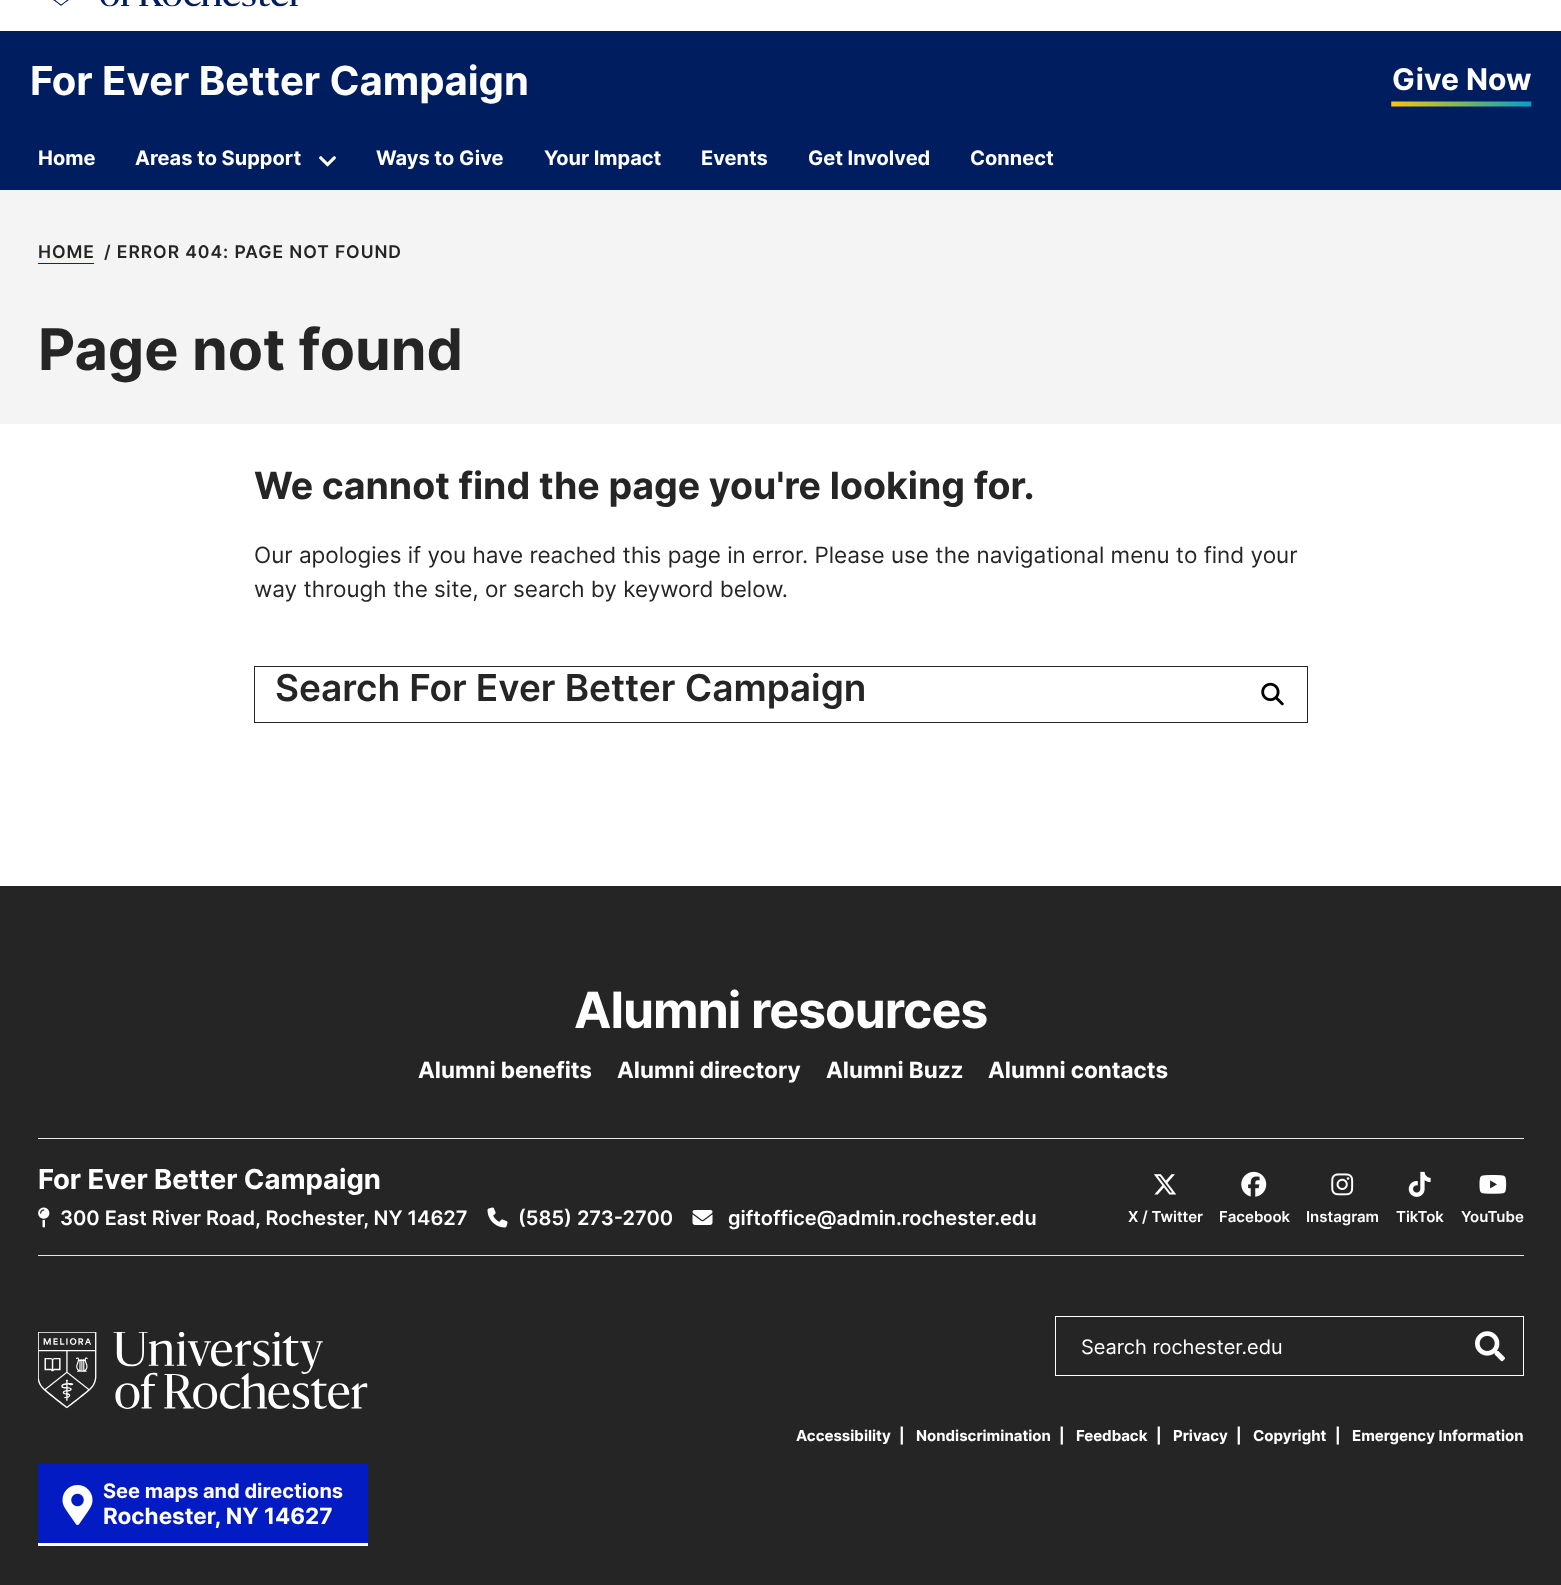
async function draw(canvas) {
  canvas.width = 1561
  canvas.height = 1585
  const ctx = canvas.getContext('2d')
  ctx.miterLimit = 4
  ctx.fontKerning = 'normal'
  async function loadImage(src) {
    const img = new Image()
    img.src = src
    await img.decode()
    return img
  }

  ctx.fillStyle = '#fff'
  ctx.fillRect(0, 0, 1561, 1585)
  ctx.drawImage(await loadImage('image0.png'), 53, 0, 245, 7)
  ctx.fillStyle = '#001e5f'
  ctx.fillRect(0, 31, 1561, 159)
  ctx.font = 'bold 40px Inter'
  ctx.fillStyle = '#fff'
  ctx.fillText('For Ever Better Campaign', 30, 95)
  ctx.drawImage(await loadImage('image1.png'), 1391, 101, 141, 6)
  ctx.font = 'bold 30px Inter'
  ctx.fillText('Give Now', 1392, 90)
  ctx.font = 'bold 20px Inter'
  ctx.fillText('Home', 38, 165)
  ctx.fillText('Areas to Support', 135, 165)
  ctx.drawImage(await loadImage('image2.png'), 319, 156, 17, 11)
  ctx.fillText('Ways to Give', 376, 165)
  ctx.fillText('Your Impact', 544, 165)
  ctx.fillText('Events', 701, 165)
  ctx.fillText('Get Involved', 808, 165)
  ctx.fillText('Connect', 970, 165)
  ctx.fillStyle = '#f4f4f4'
  ctx.fillRect(0, 190, 1561, 234)
  ctx.fillStyle = '#021bc3'
  ctx.fillRect(38, 263, 56, 1)
  ctx.letterSpacing = '0.95px'
  ctx.font = '600 17.5px Inter'
  ctx.fillStyle = '#252525'
  ctx.fillText('HOME', 38, 258)
  ctx.fillText('/ ERROR 404: PAGE NOT FOUND', 104, 258)
  ctx.letterSpacing = '0px'
  ctx.font = 'bold 57.5px Inter'
  ctx.fillText('Page not found', 38, 370)
  ctx.font = 'bold 37.5px Inter'
  ctx.fillText('We cannot find the page you\'re looking for.', 254, 499)
  ctx.font = '22.5px Inter'
  ctx.fillText('Our apologies if you have reached this page in error. Please use the navigational menu to find your', 254, 563)
  ctx.fillText('way through the site, or search by keyword below.', 254, 597)
  ctx.strokeStyle = '#252525'
  ctx.strokeRect(254.5, 666.5, 1053, 56)
  ctx.font = '600 37px Inter'
  ctx.fillText('Search For Ever Better Campaign', 275, 701)
  ctx.drawImage(await loadImage('image3.png'), 1261, 682, 23, 24)
  ctx.fillRect(0, 886, 1561, 699)
  ctx.letterSpacing = '-1px'
  ctx.font = 'bold 50px Inter'
  ctx.fillStyle = '#fff'
  ctx.fillText('Alumni resources', 574, 1028)
  ctx.letterSpacing = '0px'
  ctx.font = 'bold 22.5px Inter'
  ctx.fillText('Alumni benefits', 418, 1078)
  ctx.fillText('Alumni directory', 617, 1078)
  ctx.fillText('Alumni Buzz', 826, 1078)
  ctx.fillText('Alumni contacts', 988, 1078)
  ctx.fillStyle = '#e8e8e8'
  ctx.fillRect(38, 1138, 1486, 1)
  ctx.fillRect(38, 1255, 1486, 1)
  ctx.font = 'bold 27.5px Inter'
  ctx.fillStyle = '#fff'
  ctx.fillText('For Ever Better Campaign', 38, 1189)
  ctx.drawImage(await loadImage('image4.png'), 38, 1207, 12, 21)
  ctx.font = '600 20px Inter'
  ctx.fillText('300 East River Road, Rochester, NY 14627', 60, 1225)
  ctx.drawImage(await loadImage('image5.png'), 487, 1207, 21, 21)
  ctx.fillText('(585) 273-2700', 518, 1225)
  ctx.drawImage(await loadImage('image6.png'), 692, 1210, 21, 15)
  ctx.fillText('giftoffice@admin.rochester.edu', 728, 1225)
  ctx.drawImage(await loadImage('image7.png'), 1153, 1174, 24, 21)
  ctx.font = '600 15px Inter'
  ctx.fillText('X / Twitter', 1128, 1222)
  ctx.drawImage(await loadImage('image8.png'), 1241, 1171, 26, 26)
  ctx.fillText('Facebook', 1219, 1222)
  ctx.drawImage(await loadImage('image9.png'), 1331, 1173, 23, 23)
  ctx.fillText('Instagram', 1306, 1222)
  ctx.drawImage(await loadImage('image10.png'), 1408, 1171, 23, 26)
  ctx.fillText('TikTok', 1396, 1222)
  ctx.drawImage(await loadImage('image11.png'), 1479, 1175, 28, 19)
  ctx.fillText('YouTube', 1461, 1222)
  ctx.strokeStyle = '#fff'
  ctx.strokeRect(1055.5, 1316.5, 468, 59)
  ctx.font = '20px Inter'
  ctx.fillText('Search rochester.edu', 1081, 1354)
  ctx.drawImage(await loadImage('image12.png'), 1475, 1331, 30, 31)
  ctx.font = 'bold 15px Inter'
  ctx.fillText('Accessibility', 796, 1441)
  ctx.fillText('|', 899, 1441)
  ctx.fillText('Nondiscrimination', 916, 1441)
  ctx.fillText('|', 1059, 1441)
  ctx.fillText('Feedback', 1076, 1441)
  ctx.fillText('|', 1156, 1441)
  ctx.fillText('Privacy', 1173, 1441)
  ctx.fillText('|', 1236, 1441)
  ctx.fillText('Copyright', 1253, 1441)
  ctx.fillText('|', 1335, 1441)
  ctx.fillText('Emergency Information', 1352, 1441)
  ctx.drawImage(await loadImage('image13.png'), 38, 1332, 330, 77)
  ctx.fillStyle = '#021bc3'
  ctx.fillRect(38, 1464, 330, 79)
  ctx.drawImage(await loadImage('image14.png'), 62, 1485, 31, 40)
  ctx.font = 'bold 20px Inter'
  ctx.fillStyle = '#fff'
  ctx.fillText('See maps and directions', 103, 1498)
  ctx.font = 'bold 22.5px Inter'
  ctx.fillText('Rochester, NY 14627', 103, 1524)
  ctx.fillRect(38, 1543, 330, 3)
}

draw(document.querySelector('canvas'))
